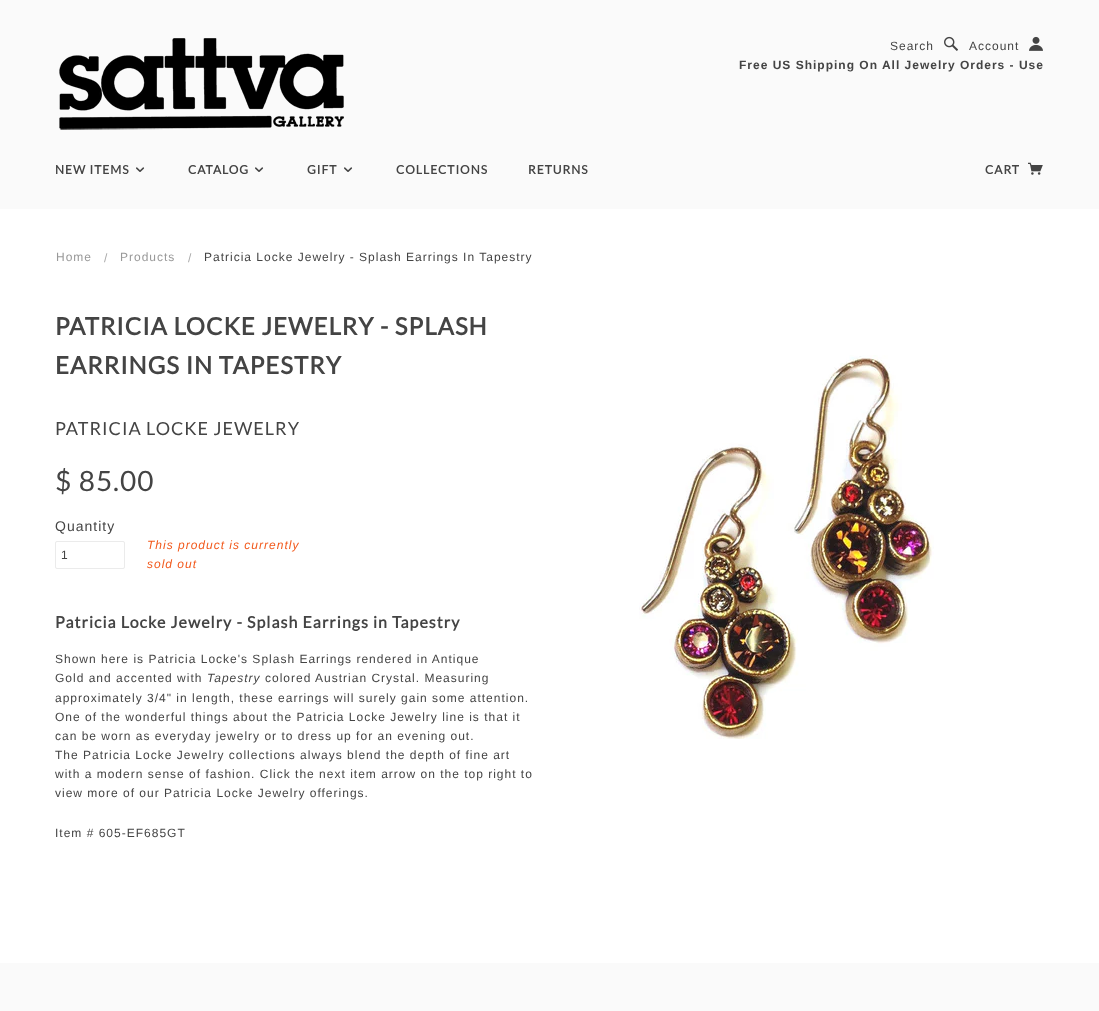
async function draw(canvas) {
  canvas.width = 1099
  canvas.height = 1011
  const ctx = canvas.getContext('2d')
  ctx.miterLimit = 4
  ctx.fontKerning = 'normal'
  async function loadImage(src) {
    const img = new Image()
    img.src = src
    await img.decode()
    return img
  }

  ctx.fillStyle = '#fff'
  ctx.fillRect(0, 0, 1099, 1011)
  ctx.fillStyle = '#fafafa'
  ctx.fillRect(0, 0, 1099, 209)
  ctx.drawImage(await loadImage('image0.png'), 59, 38, 285, 92)
  ctx.letterSpacing = '1px'
  ctx.font = '12px Liberation Sans'
  ctx.fillStyle = '#444'
  ctx.fillText('Search', 890, 50)
  ctx.drawImage(await loadImage('image1.png'), 944, 36, 14, 15)
  ctx.fillText('Account', 969, 50)
  ctx.drawImage(await loadImage('image2.png'), 1029, 36, 14, 15)
  ctx.font = 'bold 12px Liberation Sans'
  ctx.fillText('Free US Shipping On All Jewelry Orders - Use', 739, 69)
  ctx.font = 'bold 12px Lato'
  ctx.fillText('NEW ITEMS', 55, 174)
  ctx.drawImage(await loadImage('image3.png'), 136, 167, 9, 5)
  ctx.fillText('CATALOG', 188, 174)
  ctx.drawImage(await loadImage('image3.png'), 255, 167, 9, 5)
  ctx.fillText('GIFT', 307, 174)
  ctx.drawImage(await loadImage('image3.png'), 344, 167, 9, 5)
  ctx.fillText('COLLECTIONS', 396, 174)
  ctx.fillText('RETURNS', 528, 174)
  ctx.fillText('CART', 985, 174)
  ctx.drawImage(await loadImage('image4.png'), 1028, 162, 15, 13)
  ctx.font = '12px Liberation Sans'
  ctx.fillStyle = '#999'
  ctx.fillText('Home', 56, 261)
  ctx.fillStyle = '#aaa'
  ctx.fillText('/', 104, 262)
  ctx.fillStyle = '#999'
  ctx.fillText('Products', 120, 261)
  ctx.fillStyle = '#aaa'
  ctx.fillText('/', 188, 262)
  ctx.fillStyle = '#444'
  ctx.fillText('Patricia Locke Jewelry - Splash Earrings In Tapestry', 204, 261)
  ctx.font = 'bold 24px Lato'
  ctx.fillText('PATRICIA LOCKE JEWELRY - SPLASH', 55, 335)
  ctx.fillText('EARRINGS IN TAPESTRY', 55, 374)
  ctx.font = '18px Lato'
  ctx.fillText('PATRICIA LOCKE JEWELRY', 55, 435)
  ctx.font = '28px Lato'
  ctx.fillText('$ 85.00', 55, 491)
  ctx.font = '14px Liberation Sans'
  ctx.fillText('Quantity', 55, 531)
  ctx.beginPath()
  ctx.roundRect(55.5, 541.5, 69, 27, 1.5)
  ctx.strokeStyle = '#ebebeb'
  ctx.stroke()
  ctx.font = '12px Liberation Sans'
  ctx.fillText('1', 61, 559)
  ctx.font = 'italic 12px Liberation Sans'
  ctx.fillStyle = '#f25a1d'
  ctx.fillText('This product is currently', 147, 549)
  ctx.fillText('sold out', 147, 568)
  ctx.font = 'bold 16px Lato'
  ctx.fillStyle = '#444'
  ctx.fillText('Patricia Locke Jewelry - Splash Earrings in Tapestry', 55, 628)
  ctx.font = '12px Liberation Sans'
  ctx.fillText('Shown here is Patricia Locke\'s Splash Earrings rendered in Antique', 55, 663)
  ctx.fillText('Gold and accented with', 55, 682)
  ctx.font = 'italic 12px Liberation Sans'
  ctx.fillText('Tapestry', 207, 682)
  ctx.font = '12px Liberation Sans'
  ctx.fillText('colored Austrian Crystal. Measuring', 265, 682)
  ctx.fillText('approximately 3/4" in length, these earrings will surely gain some attention.', 55, 702)
  ctx.fillText('One of the wonderful things about the Patricia Locke Jewelry line is that it', 55, 721)
  ctx.fillText('can be worn as everyday jewelry or to dress up for an evening out.', 55, 740)
  ctx.fillText('The Patricia Locke Jewelry collections always blend the depth of fine art', 55, 759)
  ctx.fillText('with a modern sense of fashion. Click the next item arrow on the top right to', 55, 778)
  ctx.fillText('view more of our Patricia Locke Jewelry offerings.', 55, 797)
  ctx.fillText('Item # 605-EF685GT', 55, 837)
  ctx.drawImage(await loadImage('image5.png'), 639, 355, 295, 384)
  ctx.fillStyle = '#fafafa'
  ctx.fillRect(0, 963, 1099, 48)
}

draw(document.querySelector('canvas'))
